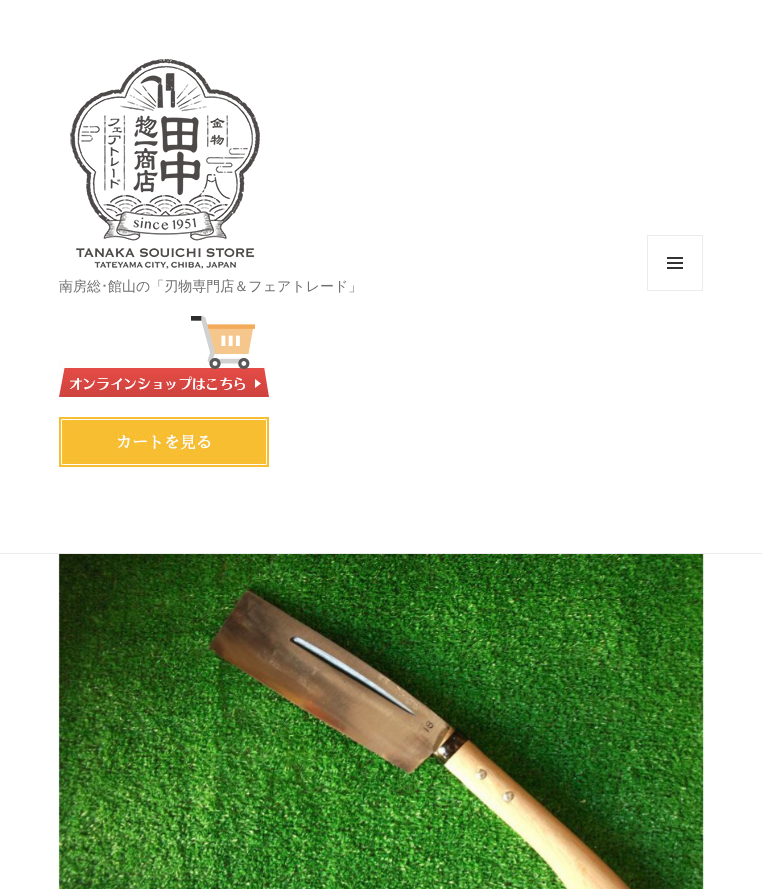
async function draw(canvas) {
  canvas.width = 762
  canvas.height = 889
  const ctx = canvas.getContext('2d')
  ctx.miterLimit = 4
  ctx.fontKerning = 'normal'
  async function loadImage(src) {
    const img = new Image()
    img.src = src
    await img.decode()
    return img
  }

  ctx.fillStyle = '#fff'
  ctx.fillRect(0, 0, 762, 889)
  ctx.fillStyle = '#ebebeb'
  ctx.fillRect(0, 553, 762, 1)
  ctx.drawImage(await loadImage('image0.png'), 70, 59, 190, 210)
  ctx.strokeStyle = '#ebebeb'
  ctx.strokeRect(647.5, 235.5, 55, 55)
  ctx.drawImage(await loadImage('image1.png'), 667, 257, 16, 12)
  ctx.font = '500 14px WenQuanYi Zen Hei'
  ctx.fillStyle = '#707070'
  ctx.fillText('南房総', 59, 291)
  ctx.font = '14px IPAPGothic'
  ctx.fillText('･', 101, 291)
  ctx.font = '500 14px WenQuanYi Zen Hei'
  ctx.fillText('館山の「刃物専門店＆フェアトレード」', 108, 291)
  ctx.drawImage(await loadImage('image3.png'), 59, 361, 210, 36)
  ctx.drawImage(await loadImage('image2.png'), 191, 316, 64, 53)
  ctx.drawImage(await loadImage('image4.png'), 59, 417, 210, 50)
  ctx.drawImage(await loadImage('image5.png'), 58, 554, 646, 335)
}

draw(document.querySelector('canvas'))
